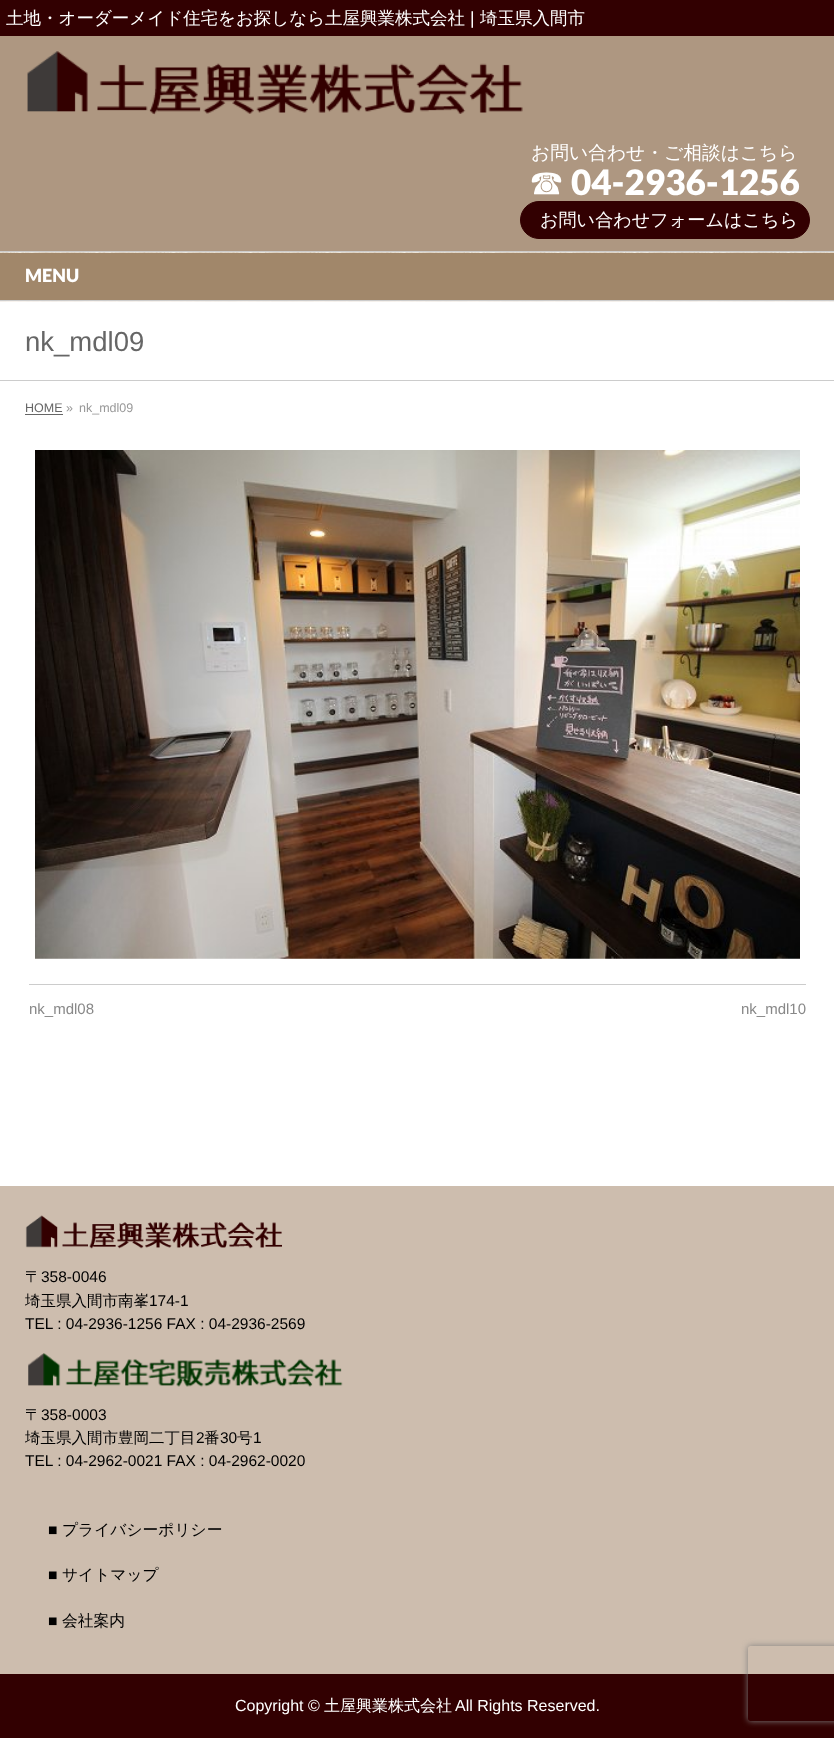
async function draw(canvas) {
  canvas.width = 834
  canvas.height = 1738
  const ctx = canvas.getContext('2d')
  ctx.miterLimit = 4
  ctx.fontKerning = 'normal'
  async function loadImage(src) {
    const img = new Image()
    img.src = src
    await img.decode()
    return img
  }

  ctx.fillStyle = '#fff'
  ctx.fillRect(0, 0, 834, 1738)
  ctx.fillStyle = '#ae9781'
  ctx.fillRect(0, 36, 834, 215)
  ctx.fillStyle = '#320001'
  ctx.fillRect(0, 0, 834, 36)
  ctx.font = '500 17.5px WenQuanYi Zen Hei'
  ctx.fillStyle = '#fff'
  ctx.fillText('土地・オーダーメイド住宅をお探しなら土屋興業株式会社', 6, 24)
  ctx.font = '17.5px Liberation Sans'
  ctx.fillText('|', 470, 24)
  ctx.font = '500 17.5px WenQuanYi Zen Hei'
  ctx.fillText('埼玉県入間市', 480, 24)
  ctx.drawImage(await loadImage('image0.png'), 27, 51, 496, 64)
  ctx.font = '500 18.75px WenQuanYi Zen Hei'
  ctx.fillText('お問い合わせ・ご相談はこちら', 531, 159)
  ctx.font = '500 35px WenQuanYi Zen Hei'
  ctx.fillText('☎︎', 529, 195)
  ctx.font = '900 35px Lato'
  ctx.fillText('04-2936-1256', 571, 195)
  ctx.fillStyle = '#320001'
  ctx.beginPath()
  ctx.roundRect(520.5, 201.5, 289, 37, 18.5)
  ctx.fill()
  ctx.strokeStyle = '#320001'
  ctx.stroke()
  ctx.font = '500 18.1px WenQuanYi Zen Hei'
  ctx.fillStyle = '#fff'
  ctx.fillText('お問い合わせフォームはこちら', 540, 226)
  ctx.drawImage(await loadImage('image1.png'), 0, 252, 834, 50)
  ctx.fillStyle = '#ccc'
  ctx.fillRect(0, 251, 834, 1)
  ctx.fillRect(0, 300, 834, 1)
  ctx.fillStyle = '#a1876a'
  ctx.fillRect(0, 253, 834, 47)
  ctx.font = '900 18.1px Lato'
  ctx.fillStyle = '#fff'
  ctx.fillText('MENU', 25, 282)
  ctx.fillStyle = '#ccc'
  ctx.fillRect(0, 380, 834, 1)
  ctx.font = '27.5px Liberation Sans'
  ctx.fillStyle = '#666'
  ctx.fillText('nk_mdl09', 25, 351)
  ctx.font = '12.5px Liberation Sans'
  ctx.fillText('HOME', 25, 412)
  ctx.fillRect(25, 414, 38, 1)
  ctx.fillStyle = '#999'
  ctx.fillText('»', 66, 412)
  ctx.fillText('nk_mdl09', 79, 412)
  ctx.drawImage(await loadImage('image2.png'), 35, 450, 765, 509)
  ctx.fillStyle = '#ccc'
  ctx.fillRect(29, 984, 777, 1)
  ctx.font = '15px Liberation Sans'
  ctx.fillStyle = '#888'
  ctx.fillText('nk_mdl08', 29, 1014)
  ctx.fillText('nk_mdl10', 741, 1014)
  ctx.fillStyle = '#cdbdae'
  ctx.fillRect(0, 1186, 834, 488)
  ctx.drawImage(await loadImage('image3.png'), 25, 1215, 257, 34)
  ctx.font = '500 15.5px WenQuanYi Zen Hei'
  ctx.fillStyle = '#000'
  ctx.fillText('〒', 25, 1282)
  ctx.font = '15.5px Liberation Sans'
  ctx.fillText('358-0046', 41, 1282)
  ctx.font = '500 15.5px WenQuanYi Zen Hei'
  ctx.fillText('埼玉県入間市南峯', 25, 1306)
  ctx.font = '15.5px Liberation Sans'
  ctx.fillText('174-1', 149, 1306)
  ctx.fillText('TEL : 04-2936-1256 FAX : 04-2936-2569', 25, 1329)
  ctx.drawImage(await loadImage('image4.png'), 28, 1353, 315, 34)
  ctx.font = '500 15.5px WenQuanYi Zen Hei'
  ctx.fillText('〒', 25, 1420)
  ctx.font = '15.5px Liberation Sans'
  ctx.fillText('358-0003', 41, 1420)
  ctx.font = '500 15.5px WenQuanYi Zen Hei'
  ctx.fillText('埼玉県入間市豊岡二丁目', 25, 1443)
  ctx.font = '15.5px Liberation Sans'
  ctx.fillText('2', 196, 1443)
  ctx.font = '500 15.5px WenQuanYi Zen Hei'
  ctx.fillText('番', 204, 1443)
  ctx.font = '15.5px Liberation Sans'
  ctx.fillText('30', 220, 1443)
  ctx.font = '500 15.5px WenQuanYi Zen Hei'
  ctx.fillText('号', 237, 1443)
  ctx.font = '15.5px Liberation Sans'
  ctx.fillText('1', 253, 1443)
  ctx.fillText('TEL : 04-2962-0021 FAX : 04-2962-0020', 25, 1466)
  ctx.font = '15.75px Liberation Sans'
  ctx.fillText('■', 48, 1535)
  ctx.font = '500 15.75px WenQuanYi Zen Hei'
  ctx.fillText('プライバシーポリシー', 62, 1535)
  ctx.font = '15.75px Liberation Sans'
  ctx.fillText('■', 48, 1580)
  ctx.font = '500 15.75px WenQuanYi Zen Hei'
  ctx.fillText('サイトマップ', 62, 1580)
  ctx.font = '15.75px Liberation Sans'
  ctx.fillText('■', 48, 1626)
  ctx.font = '500 15.75px WenQuanYi Zen Hei'
  ctx.fillText('会社案内', 62, 1626)
  ctx.fillStyle = '#320001'
  ctx.fillRect(0, 1674, 834, 64)
  ctx.font = '16px Liberation Sans'
  ctx.fillStyle = '#fff'
  ctx.fillText('Copyright ©', 235, 1711)
  ctx.font = '500 16px WenQuanYi Zen Hei'
  ctx.fillText('土屋興業株式会社', 324, 1711)
  ctx.font = '16px Liberation Sans'
  ctx.fillText('All Rights Reserved.', 455, 1711)
  ctx.save()
  ctx.beginPath()
  ctx.moveTo(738, 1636)
  ctx.lineTo(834, 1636)
  ctx.lineTo(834, 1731)
  ctx.lineTo(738, 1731)
  ctx.closePath()
  ctx.moveTo(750.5, 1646)
  ctx.lineTo(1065.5, 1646)
  ctx.bezierCurveTo(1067, 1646, 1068, 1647, 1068, 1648.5)
  ctx.lineTo(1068, 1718.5)
  ctx.bezierCurveTo(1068, 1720, 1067, 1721, 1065.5, 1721)
  ctx.lineTo(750.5, 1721)
  ctx.bezierCurveTo(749, 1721, 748, 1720, 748, 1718.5)
  ctx.lineTo(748, 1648.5)
  ctx.bezierCurveTo(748, 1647, 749, 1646, 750.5, 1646)
  ctx.closePath()
  ctx.clip('evenodd')
  ctx.fillStyle = '#808080'
  ctx.filter = 'blur(3px)'
  ctx.beginPath()
  ctx.roundRect(748, 1646, 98, 75, 2.5)
  ctx.fill()
  ctx.filter = 'none'
  ctx.restore()
}

draw(document.querySelector('canvas'))
